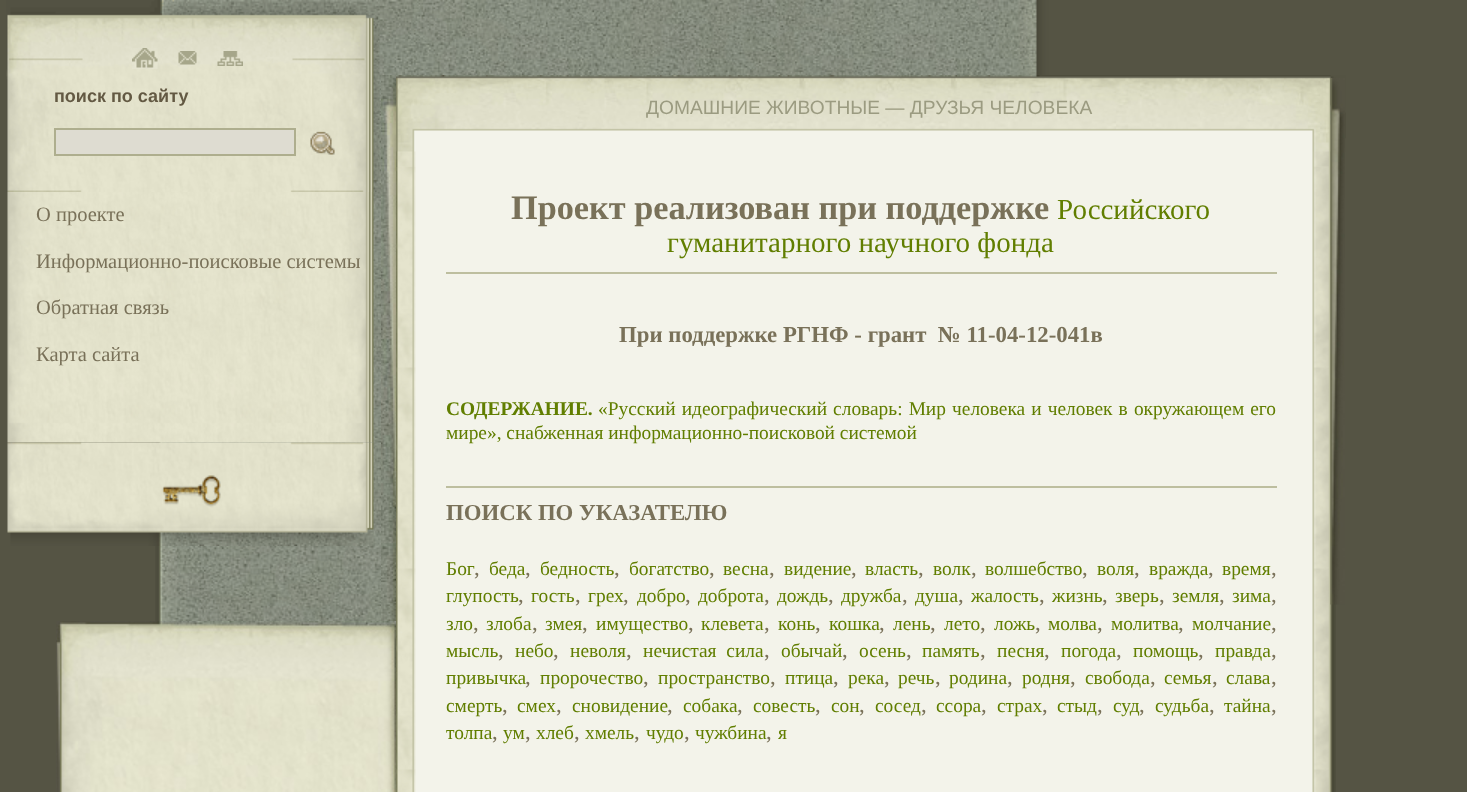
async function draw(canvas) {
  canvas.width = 1467
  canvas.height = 792
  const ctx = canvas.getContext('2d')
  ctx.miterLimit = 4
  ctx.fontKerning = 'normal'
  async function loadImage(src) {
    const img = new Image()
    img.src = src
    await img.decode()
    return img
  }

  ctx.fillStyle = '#555444'
  ctx.fillRect(0, 0, 1467, 792)
  ctx.drawImage(await loadImage('image0.png'), 155, 0, 226, 621)
  ctx.drawImage(await loadImage('image1.png'), 6, 0, 374, 192)
  ctx.drawImage(await loadImage('image2.png'), 132, 48, 26, 21)
  ctx.drawImage(await loadImage('image3.png'), 178, 51, 19, 14)
  ctx.drawImage(await loadImage('image4.png'), 217, 51, 26, 15)
  ctx.font = 'bold 18px Liberation Sans'
  ctx.fillStyle = '#635943'
  ctx.fillText('поиск по сайту', 54, 102)
  ctx.fillStyle = '#dedcd1'
  ctx.beginPath()
  ctx.rect(55, 129, 240, 26)
  ctx.fill()
  ctx.strokeStyle = '#aeae8e'
  ctx.lineWidth = 2
  ctx.stroke()
  ctx.drawImage(await loadImage('image5.png'), 310, 131, 25, 24)
  ctx.drawImage(await loadImage('image6.png'), 7, 192, 367, 251)
  ctx.font = '20.5px Liberation Serif'
  ctx.fillStyle = '#797159'
  ctx.fillText('О проекте', 36, 221)
  ctx.fillText('Информационно-поисковые системы', 36, 268)
  ctx.fillText('Обратная связь', 36, 314)
  ctx.fillText('Карта сайта', 36, 361)
  ctx.drawImage(await loadImage('image7.png'), 7, 442, 367, 104)
  ctx.drawImage(await loadImage('image9.png'), 396, 151, 940, 641)
  ctx.drawImage(await loadImage('image14.png'), 381, 166, 948, 626)
  ctx.drawImage(await loadImage('image8.png'), 56, 621, 340, 171)
  ctx.drawImage(await loadImage('image10.png'), 381, 0, 955, 75)
  ctx.drawImage(await loadImage('image11.png'), 381, 75, 15, 527)
  ctx.drawImage(await loadImage('image12.png'), 396, 75, 950, 77)
  ctx.font = '19.2px Liberation Sans'
  ctx.fillStyle = '#9b9b81'
  ctx.fillText('ДОМАШНИЕ ЖИВОТНЫЕ — ДРУЗЬЯ ЧЕЛОВЕКА', 646, 114)
  ctx.drawImage(await loadImage('image13.png'), 1330, 78, 15, 527)
  ctx.fillStyle = '#bdbe9f'
  ctx.fillRect(446, 272, 831, 2)
  ctx.font = 'bold 34.25px Liberation Serif'
  ctx.fillStyle = '#797159'
  ctx.fillText('Проект реализован при поддержке', 511, 219)
  ctx.font = '29px Liberation Serif'
  ctx.fillStyle = '#617e00'
  ctx.fillText('Российского', 1057, 219)
  ctx.fillText('гуманитарного научного фонда', 667, 252)
  ctx.font = 'bold 22.8px Liberation Serif'
  ctx.fillStyle = '#797159'
  ctx.fillText('При поддержке РГНФ - грант  № 11-04-12-041в', 619, 342)
  ctx.font = 'bold 19.4px Liberation Serif'
  ctx.fillStyle = '#617e00'
  ctx.fillText('СОДЕРЖАНИЕ.', 446, 415)
  ctx.wordSpacing = '1.25px'
  ctx.font = '19.4px Liberation Serif'
  ctx.fillText('«Русский идеографический cловарь: Мир человека и человек в окружающем его', 598, 415)
  ctx.wordSpacing = '0px'
  ctx.fillText('мире», снабженная информационно-поисковой системой', 446, 439)
  ctx.fillStyle = '#bdbe9f'
  ctx.fillRect(446, 486, 831, 2)
  ctx.font = 'bold 22.8px Liberation Serif'
  ctx.fillStyle = '#797159'
  ctx.fillText('ПОИСК ПО УКАЗАТЕЛЮ', 446, 520)
  ctx.font = '19.4px Liberation Serif'
  ctx.fillStyle = '#617e00'
  ctx.fillText('Бог', 446, 575)
  ctx.font = '22.8px Liberation Serif'
  ctx.fillStyle = '#797159'
  ctx.fillText(',', 474, 575)
  ctx.font = '19.4px Liberation Serif'
  ctx.fillStyle = '#617e00'
  ctx.fillText('беда', 489, 575)
  ctx.font = '22.8px Liberation Serif'
  ctx.fillStyle = '#797159'
  ctx.fillText(',', 525, 575)
  ctx.font = '19.4px Liberation Serif'
  ctx.fillStyle = '#617e00'
  ctx.fillText('бедность', 540, 575)
  ctx.font = '22.8px Liberation Serif'
  ctx.fillStyle = '#797159'
  ctx.fillText(',', 614, 575)
  ctx.font = '19.4px Liberation Serif'
  ctx.fillStyle = '#617e00'
  ctx.fillText('богатство', 629, 575)
  ctx.font = '22.8px Liberation Serif'
  ctx.fillStyle = '#797159'
  ctx.fillText(',', 709, 575)
  ctx.font = '19.4px Liberation Serif'
  ctx.fillStyle = '#617e00'
  ctx.fillText('весна', 723, 575)
  ctx.font = '22.8px Liberation Serif'
  ctx.fillStyle = '#797159'
  ctx.fillText(',', 769, 575)
  ctx.font = '19.4px Liberation Serif'
  ctx.fillStyle = '#617e00'
  ctx.fillText('видение', 784, 575)
  ctx.font = '22.8px Liberation Serif'
  ctx.fillStyle = '#797159'
  ctx.fillText(',', 851, 575)
  ctx.font = '19.4px Liberation Serif'
  ctx.fillStyle = '#617e00'
  ctx.fillText('власть', 865, 575)
  ctx.font = '22.8px Liberation Serif'
  ctx.fillStyle = '#797159'
  ctx.fillText(',', 918, 575)
  ctx.font = '19.4px Liberation Serif'
  ctx.fillStyle = '#617e00'
  ctx.fillText('волк', 933, 575)
  ctx.font = '22.8px Liberation Serif'
  ctx.fillStyle = '#797159'
  ctx.fillText(',', 971, 575)
  ctx.font = '19.4px Liberation Serif'
  ctx.fillStyle = '#617e00'
  ctx.fillText('волшебство', 985, 575)
  ctx.font = '22.8px Liberation Serif'
  ctx.fillStyle = '#797159'
  ctx.fillText(',', 1082, 575)
  ctx.font = '19.4px Liberation Serif'
  ctx.fillStyle = '#617e00'
  ctx.fillText('воля', 1097, 575)
  ctx.font = '22.8px Liberation Serif'
  ctx.fillStyle = '#797159'
  ctx.fillText(',', 1134, 575)
  ctx.font = '19.4px Liberation Serif'
  ctx.fillStyle = '#617e00'
  ctx.fillText('вражда', 1149, 575)
  ctx.font = '22.8px Liberation Serif'
  ctx.fillStyle = '#797159'
  ctx.fillText(',', 1208, 575)
  ctx.font = '19.4px Liberation Serif'
  ctx.fillStyle = '#617e00'
  ctx.fillText('время', 1222, 575)
  ctx.font = '22.8px Liberation Serif'
  ctx.fillStyle = '#797159'
  ctx.fillText(',', 1271, 575)
  ctx.font = '19.4px Liberation Serif'
  ctx.fillStyle = '#617e00'
  ctx.fillText('глупость', 446, 602)
  ctx.font = '22.8px Liberation Serif'
  ctx.fillStyle = '#797159'
  ctx.fillText(',', 518, 602)
  ctx.font = '19.4px Liberation Serif'
  ctx.fillStyle = '#617e00'
  ctx.fillText('гость', 531, 602)
  ctx.font = '22.8px Liberation Serif'
  ctx.fillStyle = '#797159'
  ctx.fillText(',', 575, 602)
  ctx.font = '19.4px Liberation Serif'
  ctx.fillStyle = '#617e00'
  ctx.fillText('грех', 588, 602)
  ctx.font = '22.8px Liberation Serif'
  ctx.fillStyle = '#797159'
  ctx.fillText(',', 623, 602)
  ctx.font = '19.4px Liberation Serif'
  ctx.fillStyle = '#617e00'
  ctx.fillText('добро', 637, 602)
  ctx.font = '22.8px Liberation Serif'
  ctx.fillStyle = '#797159'
  ctx.fillText(',', 685, 602)
  ctx.font = '19.4px Liberation Serif'
  ctx.fillStyle = '#617e00'
  ctx.fillText('доброта', 698, 602)
  ctx.font = '22.8px Liberation Serif'
  ctx.fillStyle = '#797159'
  ctx.fillText(',', 764, 602)
  ctx.font = '19.4px Liberation Serif'
  ctx.fillStyle = '#617e00'
  ctx.fillText('дождь', 777, 602)
  ctx.font = '22.8px Liberation Serif'
  ctx.fillStyle = '#797159'
  ctx.fillText(',', 828, 602)
  ctx.font = '19.4px Liberation Serif'
  ctx.fillStyle = '#617e00'
  ctx.fillText('дружба', 841, 602)
  ctx.font = '22.8px Liberation Serif'
  ctx.fillStyle = '#797159'
  ctx.fillText(',', 902, 602)
  ctx.font = '19.4px Liberation Serif'
  ctx.fillStyle = '#617e00'
  ctx.fillText('душа', 915, 602)
  ctx.font = '22.8px Liberation Serif'
  ctx.fillStyle = '#797159'
  ctx.fillText(',', 958, 602)
  ctx.font = '19.4px Liberation Serif'
  ctx.fillStyle = '#617e00'
  ctx.fillText('жалость', 971, 602)
  ctx.font = '22.8px Liberation Serif'
  ctx.fillStyle = '#797159'
  ctx.fillText(',', 1039, 602)
  ctx.font = '19.4px Liberation Serif'
  ctx.fillStyle = '#617e00'
  ctx.fillText('жизнь', 1052, 602)
  ctx.font = '22.8px Liberation Serif'
  ctx.fillStyle = '#797159'
  ctx.fillText(',', 1102, 602)
  ctx.font = '19.4px Liberation Serif'
  ctx.fillStyle = '#617e00'
  ctx.fillText('зверь', 1115, 602)
  ctx.font = '22.8px Liberation Serif'
  ctx.fillStyle = '#797159'
  ctx.fillText(',', 1159, 602)
  ctx.font = '19.4px Liberation Serif'
  ctx.fillStyle = '#617e00'
  ctx.fillText('земля', 1172, 602)
  ctx.font = '22.8px Liberation Serif'
  ctx.fillStyle = '#797159'
  ctx.fillText(',', 1219, 602)
  ctx.font = '19.4px Liberation Serif'
  ctx.fillStyle = '#617e00'
  ctx.fillText('зима', 1232, 602)
  ctx.font = '22.8px Liberation Serif'
  ctx.fillStyle = '#797159'
  ctx.fillText(',', 1271, 602)
  ctx.font = '19.4px Liberation Serif'
  ctx.fillStyle = '#617e00'
  ctx.fillText('зло', 446, 630)
  ctx.font = '22.8px Liberation Serif'
  ctx.fillStyle = '#797159'
  ctx.fillText(',', 473, 630)
  ctx.font = '19.4px Liberation Serif'
  ctx.fillStyle = '#617e00'
  ctx.fillText('злоба', 486, 630)
  ctx.font = '22.8px Liberation Serif'
  ctx.fillStyle = '#797159'
  ctx.fillText(',', 532, 630)
  ctx.font = '19.4px Liberation Serif'
  ctx.fillStyle = '#617e00'
  ctx.fillText('змея', 545, 630)
  ctx.font = '22.8px Liberation Serif'
  ctx.fillStyle = '#797159'
  ctx.fillText(',', 582, 630)
  ctx.font = '19.4px Liberation Serif'
  ctx.fillStyle = '#617e00'
  ctx.fillText('имущество', 596, 630)
  ctx.font = '22.8px Liberation Serif'
  ctx.fillStyle = '#797159'
  ctx.fillText(',', 688, 630)
  ctx.font = '19.4px Liberation Serif'
  ctx.fillStyle = '#617e00'
  ctx.fillText('клевета', 701, 630)
  ctx.font = '22.8px Liberation Serif'
  ctx.fillStyle = '#797159'
  ctx.fillText(',', 764, 630)
  ctx.font = '19.4px Liberation Serif'
  ctx.fillStyle = '#617e00'
  ctx.fillText('конь', 778, 630)
  ctx.font = '22.8px Liberation Serif'
  ctx.fillStyle = '#797159'
  ctx.fillText(',', 815, 630)
  ctx.font = '19.4px Liberation Serif'
  ctx.fillStyle = '#617e00'
  ctx.fillText('кошка', 829, 630)
  ctx.font = '22.8px Liberation Serif'
  ctx.fillStyle = '#797159'
  ctx.fillText(',', 879, 630)
  ctx.font = '19.4px Liberation Serif'
  ctx.fillStyle = '#617e00'
  ctx.fillText('лень', 893, 630)
  ctx.font = '22.8px Liberation Serif'
  ctx.fillStyle = '#797159'
  ctx.fillText(',', 930, 630)
  ctx.font = '19.4px Liberation Serif'
  ctx.fillStyle = '#617e00'
  ctx.fillText('лето', 944, 630)
  ctx.font = '22.8px Liberation Serif'
  ctx.fillStyle = '#797159'
  ctx.fillText(',', 980, 630)
  ctx.font = '19.4px Liberation Serif'
  ctx.fillStyle = '#617e00'
  ctx.fillText('ложь', 994, 630)
  ctx.font = '22.8px Liberation Serif'
  ctx.fillStyle = '#797159'
  ctx.fillText(',', 1035, 630)
  ctx.font = '19.4px Liberation Serif'
  ctx.fillStyle = '#617e00'
  ctx.fillText('молва', 1048, 630)
  ctx.font = '22.8px Liberation Serif'
  ctx.fillStyle = '#797159'
  ctx.fillText(',', 1097, 630)
  ctx.font = '19.4px Liberation Serif'
  ctx.fillStyle = '#617e00'
  ctx.fillText('молитва', 1111, 630)
  ctx.font = '22.8px Liberation Serif'
  ctx.fillStyle = '#797159'
  ctx.fillText(',', 1178, 630)
  ctx.font = '19.4px Liberation Serif'
  ctx.fillStyle = '#617e00'
  ctx.fillText('молчание', 1192, 630)
  ctx.font = '22.8px Liberation Serif'
  ctx.fillStyle = '#797159'
  ctx.fillText(',', 1271, 630)
  ctx.font = '19.4px Liberation Serif'
  ctx.fillStyle = '#617e00'
  ctx.fillText('мысль', 446, 657)
  ctx.font = '22.8px Liberation Serif'
  ctx.fillStyle = '#797159'
  ctx.fillText(',', 498, 657)
  ctx.font = '19.4px Liberation Serif'
  ctx.fillStyle = '#617e00'
  ctx.fillText('небо', 515, 657)
  ctx.font = '22.8px Liberation Serif'
  ctx.fillStyle = '#797159'
  ctx.fillText(',', 553, 657)
  ctx.font = '19.4px Liberation Serif'
  ctx.fillStyle = '#617e00'
  ctx.fillText('неволя', 570, 657)
  ctx.font = '22.8px Liberation Serif'
  ctx.fillStyle = '#797159'
  ctx.fillText(',', 626, 657)
  ctx.wordSpacing = '5px'
  ctx.font = '19.4px Liberation Serif'
  ctx.fillStyle = '#617e00'
  ctx.fillText('нечистая сила', 643, 657)
  ctx.wordSpacing = '0px'
  ctx.font = '22.8px Liberation Serif'
  ctx.fillStyle = '#797159'
  ctx.fillText(',', 764, 657)
  ctx.font = '19.4px Liberation Serif'
  ctx.fillStyle = '#617e00'
  ctx.fillText('обычай', 781, 657)
  ctx.font = '22.8px Liberation Serif'
  ctx.fillStyle = '#797159'
  ctx.fillText(',', 842, 657)
  ctx.font = '19.4px Liberation Serif'
  ctx.fillStyle = '#617e00'
  ctx.fillText('осень', 859, 657)
  ctx.font = '22.8px Liberation Serif'
  ctx.fillStyle = '#797159'
  ctx.fillText(',', 906, 657)
  ctx.font = '19.4px Liberation Serif'
  ctx.fillStyle = '#617e00'
  ctx.fillText('память', 922, 657)
  ctx.font = '22.8px Liberation Serif'
  ctx.fillStyle = '#797159'
  ctx.fillText(',', 980, 657)
  ctx.font = '19.4px Liberation Serif'
  ctx.fillStyle = '#617e00'
  ctx.fillText('песня', 997, 657)
  ctx.font = '22.8px Liberation Serif'
  ctx.fillStyle = '#797159'
  ctx.fillText(',', 1044, 657)
  ctx.font = '19.4px Liberation Serif'
  ctx.fillStyle = '#617e00'
  ctx.fillText('погода', 1061, 657)
  ctx.font = '22.8px Liberation Serif'
  ctx.fillStyle = '#797159'
  ctx.fillText(',', 1116, 657)
  ctx.font = '19.4px Liberation Serif'
  ctx.fillStyle = '#617e00'
  ctx.fillText('помощь', 1133, 657)
  ctx.font = '22.8px Liberation Serif'
  ctx.fillStyle = '#797159'
  ctx.fillText(',', 1198, 657)
  ctx.font = '19.4px Liberation Serif'
  ctx.fillStyle = '#617e00'
  ctx.fillText('правда', 1215, 657)
  ctx.font = '22.8px Liberation Serif'
  ctx.fillStyle = '#797159'
  ctx.fillText(',', 1271, 657)
  ctx.font = '19.4px Liberation Serif'
  ctx.fillStyle = '#617e00'
  ctx.fillText('привычка', 446, 684)
  ctx.font = '22.8px Liberation Serif'
  ctx.fillStyle = '#797159'
  ctx.fillText(',', 525, 684)
  ctx.font = '19.4px Liberation Serif'
  ctx.fillStyle = '#617e00'
  ctx.fillText('пророчество', 540, 684)
  ctx.font = '22.8px Liberation Serif'
  ctx.fillStyle = '#797159'
  ctx.fillText(',', 643, 684)
  ctx.font = '19.4px Liberation Serif'
  ctx.fillStyle = '#617e00'
  ctx.fillText('пространство', 658, 684)
  ctx.font = '22.8px Liberation Serif'
  ctx.fillStyle = '#797159'
  ctx.fillText(',', 770, 684)
  ctx.font = '19.4px Liberation Serif'
  ctx.fillStyle = '#617e00'
  ctx.fillText('птица', 785, 684)
  ctx.font = '22.8px Liberation Serif'
  ctx.fillStyle = '#797159'
  ctx.fillText(',', 833, 684)
  ctx.font = '19.4px Liberation Serif'
  ctx.fillStyle = '#617e00'
  ctx.fillText('река', 848, 684)
  ctx.font = '22.8px Liberation Serif'
  ctx.fillStyle = '#797159'
  ctx.fillText(',', 884, 684)
  ctx.font = '19.4px Liberation Serif'
  ctx.fillStyle = '#617e00'
  ctx.fillText('речь', 898, 684)
  ctx.font = '22.8px Liberation Serif'
  ctx.fillStyle = '#797159'
  ctx.fillText(',', 935, 684)
  ctx.font = '19.4px Liberation Serif'
  ctx.fillStyle = '#617e00'
  ctx.fillText('родина', 949, 684)
  ctx.font = '22.8px Liberation Serif'
  ctx.fillStyle = '#797159'
  ctx.fillText(',', 1007, 684)
  ctx.font = '19.4px Liberation Serif'
  ctx.fillStyle = '#617e00'
  ctx.fillText('родня', 1022, 684)
  ctx.font = '22.8px Liberation Serif'
  ctx.fillStyle = '#797159'
  ctx.fillText(',', 1070, 684)
  ctx.font = '19.4px Liberation Serif'
  ctx.fillStyle = '#617e00'
  ctx.fillText('свобода', 1085, 684)
  ctx.font = '22.8px Liberation Serif'
  ctx.fillStyle = '#797159'
  ctx.fillText(',', 1150, 684)
  ctx.font = '19.4px Liberation Serif'
  ctx.fillStyle = '#617e00'
  ctx.fillText('семья', 1164, 684)
  ctx.font = '22.8px Liberation Serif'
  ctx.fillStyle = '#797159'
  ctx.fillText(',', 1212, 684)
  ctx.font = '19.4px Liberation Serif'
  ctx.fillStyle = '#617e00'
  ctx.fillText('слава', 1226, 684)
  ctx.font = '22.8px Liberation Serif'
  ctx.fillStyle = '#797159'
  ctx.fillText(',', 1271, 684)
  ctx.font = '19.4px Liberation Serif'
  ctx.fillStyle = '#617e00'
  ctx.fillText('смерть', 446, 712)
  ctx.font = '22.8px Liberation Serif'
  ctx.fillStyle = '#797159'
  ctx.fillText(',', 502, 712)
  ctx.font = '19.4px Liberation Serif'
  ctx.fillStyle = '#617e00'
  ctx.fillText('смех', 517, 712)
  ctx.font = '22.8px Liberation Serif'
  ctx.fillStyle = '#797159'
  ctx.fillText(',', 556, 712)
  ctx.font = '19.4px Liberation Serif'
  ctx.fillStyle = '#617e00'
  ctx.fillText('сновидение', 572, 712)
  ctx.font = '22.8px Liberation Serif'
  ctx.fillStyle = '#797159'
  ctx.fillText(',', 667, 712)
  ctx.font = '19.4px Liberation Serif'
  ctx.fillStyle = '#617e00'
  ctx.fillText('собака', 683, 712)
  ctx.font = '22.8px Liberation Serif'
  ctx.fillStyle = '#797159'
  ctx.fillText(',', 737, 712)
  ctx.font = '19.4px Liberation Serif'
  ctx.fillStyle = '#617e00'
  ctx.fillText('совесть', 753, 712)
  ctx.font = '22.8px Liberation Serif'
  ctx.fillStyle = '#797159'
  ctx.fillText(',', 815, 712)
  ctx.font = '19.4px Liberation Serif'
  ctx.fillStyle = '#617e00'
  ctx.fillText('сон', 831, 712)
  ctx.font = '22.8px Liberation Serif'
  ctx.fillStyle = '#797159'
  ctx.fillText(',', 859, 712)
  ctx.font = '19.4px Liberation Serif'
  ctx.fillStyle = '#617e00'
  ctx.fillText('сосед', 875, 712)
  ctx.font = '22.8px Liberation Serif'
  ctx.fillStyle = '#797159'
  ctx.fillText(',', 921, 712)
  ctx.font = '19.4px Liberation Serif'
  ctx.fillStyle = '#617e00'
  ctx.fillText('ссора', 936, 712)
  ctx.font = '22.8px Liberation Serif'
  ctx.fillStyle = '#797159'
  ctx.fillText(',', 981, 712)
  ctx.font = '19.4px Liberation Serif'
  ctx.fillStyle = '#617e00'
  ctx.fillText('страх', 997, 712)
  ctx.font = '22.8px Liberation Serif'
  ctx.fillStyle = '#797159'
  ctx.fillText(',', 1042, 712)
  ctx.font = '19.4px Liberation Serif'
  ctx.fillStyle = '#617e00'
  ctx.fillText('стыд', 1057, 712)
  ctx.font = '22.8px Liberation Serif'
  ctx.fillStyle = '#797159'
  ctx.fillText(',', 1097, 712)
  ctx.font = '19.4px Liberation Serif'
  ctx.fillStyle = '#617e00'
  ctx.fillText('суд', 1113, 712)
  ctx.font = '22.8px Liberation Serif'
  ctx.fillStyle = '#797159'
  ctx.fillText(',', 1139, 712)
  ctx.font = '19.4px Liberation Serif'
  ctx.fillStyle = '#617e00'
  ctx.fillText('судьба', 1155, 712)
  ctx.font = '22.8px Liberation Serif'
  ctx.fillStyle = '#797159'
  ctx.fillText(',', 1209, 712)
  ctx.font = '19.4px Liberation Serif'
  ctx.fillStyle = '#617e00'
  ctx.fillText('тайна', 1224, 712)
  ctx.font = '22.8px Liberation Serif'
  ctx.fillStyle = '#797159'
  ctx.fillText(',', 1271, 712)
  ctx.font = '19.4px Liberation Serif'
  ctx.fillStyle = '#617e00'
  ctx.fillText('толпа', 446, 739)
  ctx.font = '22.8px Liberation Serif'
  ctx.fillStyle = '#797159'
  ctx.fillText(',', 492, 739)
  ctx.font = '19.4px Liberation Serif'
  ctx.fillStyle = '#617e00'
  ctx.fillText('ум', 503, 739)
  ctx.font = '22.8px Liberation Serif'
  ctx.fillStyle = '#797159'
  ctx.fillText(',', 525, 739)
  ctx.font = '19.4px Liberation Serif'
  ctx.fillStyle = '#617e00'
  ctx.fillText('хлеб', 536, 739)
  ctx.font = '22.8px Liberation Serif'
  ctx.fillStyle = '#797159'
  ctx.fillText(',', 574, 739)
  ctx.font = '19.4px Liberation Serif'
  ctx.fillStyle = '#617e00'
  ctx.fillText('хмель', 585, 739)
  ctx.font = '22.8px Liberation Serif'
  ctx.fillStyle = '#797159'
  ctx.fillText(',', 634, 739)
  ctx.font = '19.4px Liberation Serif'
  ctx.fillStyle = '#617e00'
  ctx.fillText('чудо', 646, 739)
  ctx.font = '22.8px Liberation Serif'
  ctx.fillStyle = '#797159'
  ctx.fillText(',', 684, 739)
  ctx.font = '19.4px Liberation Serif'
  ctx.fillStyle = '#617e00'
  ctx.fillText('чужбина', 695, 739)
  ctx.font = '22.8px Liberation Serif'
  ctx.fillStyle = '#797159'
  ctx.fillText(',', 766, 739)
  ctx.font = '19.4px Liberation Serif'
  ctx.fillStyle = '#617e00'
  ctx.fillText('я', 778, 739)
}

draw(document.querySelector('canvas'))
